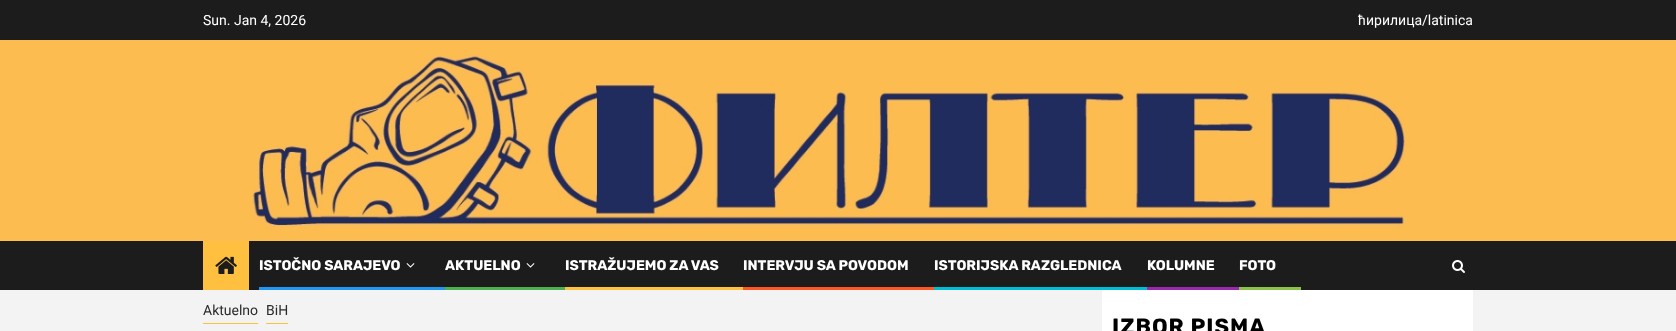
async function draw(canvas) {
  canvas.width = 1676
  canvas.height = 331
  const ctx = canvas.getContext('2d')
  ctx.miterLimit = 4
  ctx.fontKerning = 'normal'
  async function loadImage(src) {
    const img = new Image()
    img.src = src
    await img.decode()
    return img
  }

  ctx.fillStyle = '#f3f3f3'
  ctx.fillRect(0, 0, 1676, 331)
  ctx.fillStyle = '#1c1c1c'
  ctx.fillRect(0, 0, 1676, 40)
  ctx.font = '14px Roboto'
  ctx.fillStyle = '#fff'
  ctx.fillText('Sun. Jan 4, 2026', 203, 25)
  ctx.fillText('ћирилица/latinica', 1358, 25)
  ctx.drawImage(await loadImage('image0.png'), 0, 40, 1676, 201)
  ctx.fillStyle = '#1c1c1c'
  ctx.fillRect(0, 241, 1676, 49)
  ctx.fillStyle = '#ffbf3f'
  ctx.fillRect(203, 241, 46, 49)
  ctx.drawImage(await loadImage('image1.png'), 215, 256, 22, 18)
  ctx.font = 'bold 14px Rubik'
  ctx.fillStyle = '#fff'
  ctx.fillText('ISTOČNO SARAJEVO', 259, 270)
  ctx.drawImage(await loadImage('image2.png'), 406, 263, 9, 5)
  ctx.fillStyle = '#2196f3'
  ctx.fillRect(259, 287, 186, 3)
  ctx.fillStyle = '#fff'
  ctx.fillText('AKTUELNO', 445, 270)
  ctx.drawImage(await loadImage('image2.png'), 526, 263, 9, 5)
  ctx.fillStyle = '#4caf50'
  ctx.fillRect(445, 287, 120, 3)
  ctx.fillStyle = '#fff'
  ctx.fillText('ISTRAŽUJEMO ZA VAS', 565, 270)
  ctx.fillStyle = '#ffbf3f'
  ctx.fillRect(565, 287, 178, 3)
  ctx.fillStyle = '#fff'
  ctx.fillText('INTERVJU SA POVODOM', 743, 270)
  ctx.fillStyle = '#ff5722'
  ctx.fillRect(743, 287, 191, 3)
  ctx.fillStyle = '#fff'
  ctx.fillText('ISTORIJSKA RAZGLEDNICA', 934, 270)
  ctx.fillStyle = '#00bcd4'
  ctx.fillRect(934, 287, 213, 3)
  ctx.fillStyle = '#fff'
  ctx.fillText('KOLUMNE', 1147, 270)
  ctx.fillStyle = '#9c27b0'
  ctx.fillRect(1147, 287, 92, 3)
  ctx.fillStyle = '#fff'
  ctx.fillText('FOTO', 1239, 270)
  ctx.fillStyle = '#8bc34a'
  ctx.fillRect(1239, 287, 62, 3)
  ctx.drawImage(await loadImage('image3.png'), 1452, 260, 13, 13)
  ctx.fillStyle = '#ffbf3f'
  ctx.fillRect(203, 323, 55, 1)
  ctx.font = '14px Roboto'
  ctx.fillStyle = '#2b2b2b'
  ctx.fillText('Aktuelno', 203, 315)
  ctx.fillStyle = '#ffbf3f'
  ctx.fillRect(266, 323, 22, 1)
  ctx.fillStyle = '#2b2b2b'
  ctx.fillText('BiH', 266, 315)
  ctx.fillStyle = '#fff'
  ctx.fillRect(1102, 290, 371, 41)
  ctx.letterSpacing = '1px'
  ctx.font = 'bold 22px Rubik'
  ctx.fillStyle = '#000'
  ctx.fillText('IZBOR PISMA', 1112, 334)
}

draw(document.querySelector('canvas'))
